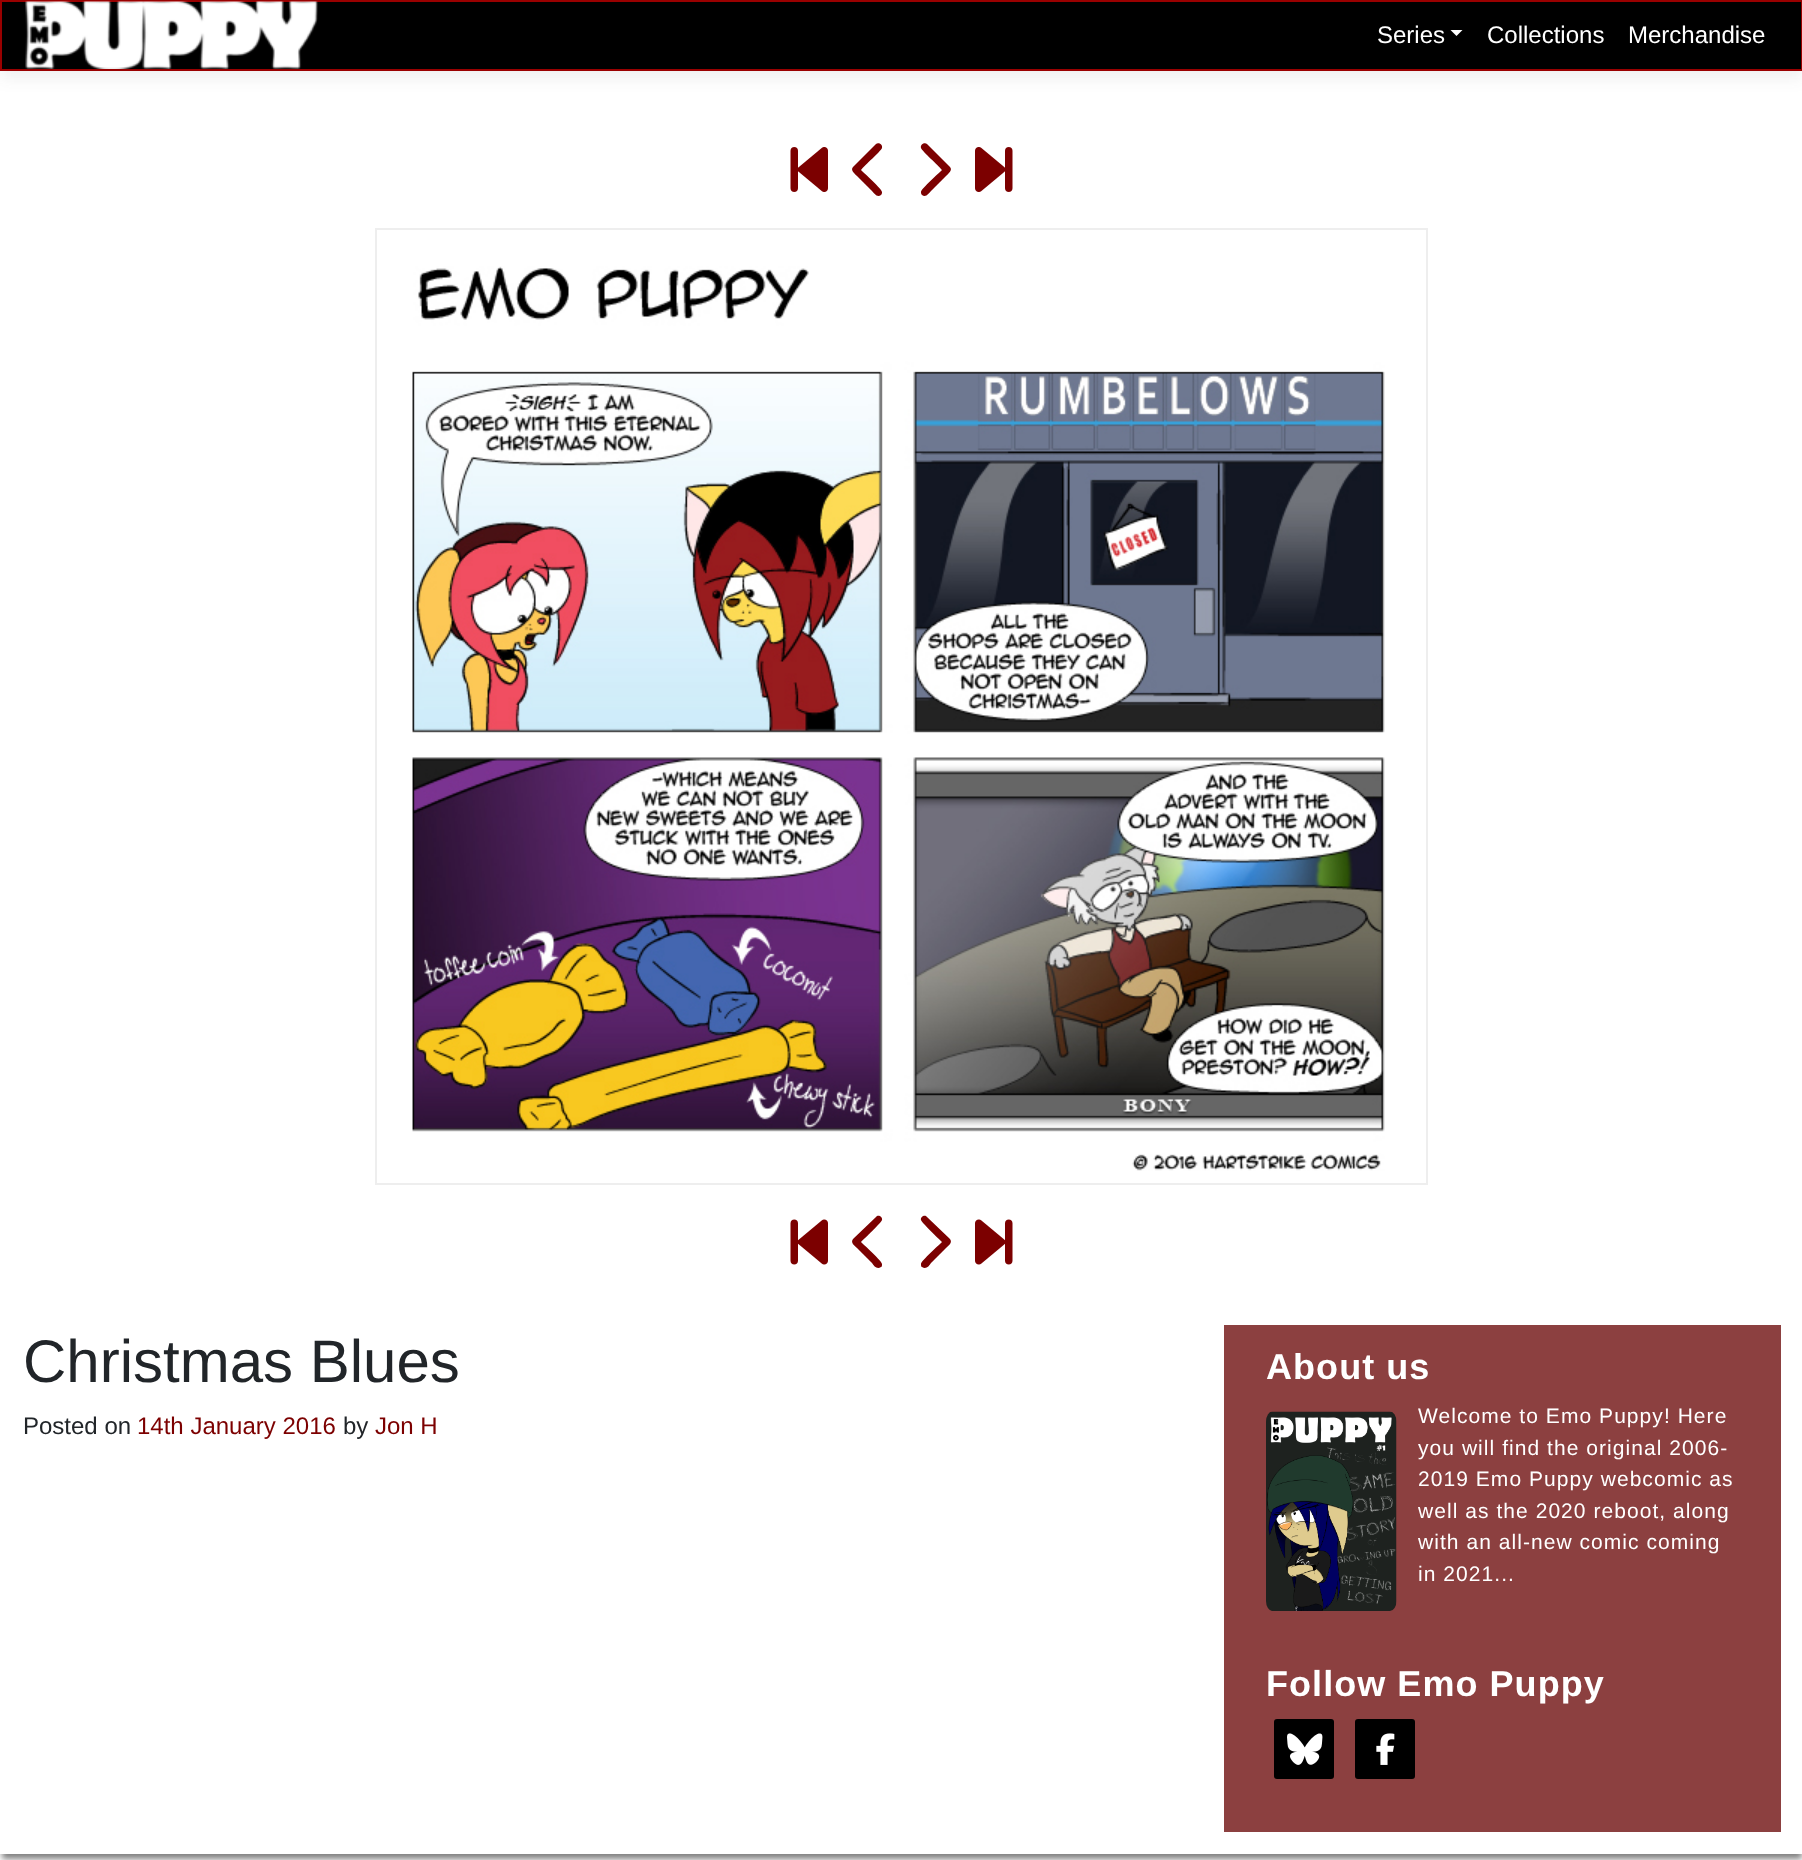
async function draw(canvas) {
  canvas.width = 1802
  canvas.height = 1860
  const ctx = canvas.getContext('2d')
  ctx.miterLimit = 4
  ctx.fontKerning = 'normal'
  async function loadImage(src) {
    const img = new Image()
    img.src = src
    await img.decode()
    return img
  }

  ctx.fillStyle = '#fff'
  ctx.fillRect(0, 0, 1802, 1860)
  ctx.fillStyle = '#32323214'
  ctx.filter = 'blur(8px)'
  ctx.beginPath()
  ctx.rect(0, 8, 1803, 70)
  ctx.fill()
  ctx.filter = 'none'
  ctx.fillStyle = '#000'
  ctx.beginPath()
  ctx.rect(1, 1, 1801, 69)
  ctx.fill()
  ctx.strokeStyle = '#9a0000'
  ctx.lineWidth = 2
  ctx.stroke()
  ctx.drawImage(await loadImage('image0.png'), 25, 1, 293, 68)
  ctx.font = '24px Liberation Sans'
  ctx.fillStyle = '#fff'
  ctx.fillText('Series', 1377, 43)
  ctx.beginPath()
  ctx.moveTo(1450.5, 30)
  ctx.lineTo(1462.5, 30)
  ctx.lineTo(1456.5, 36)
  ctx.closePath()
  ctx.fill()
  ctx.fillText('Collections', 1487, 43)
  ctx.fillText('Merchandise', 1628, 43)
  ctx.save()
  ctx.beginPath()
  ctx.rect(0, 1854, 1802, 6)
  ctx.clip()
  ctx.fillStyle = '#00000080'
  ctx.filter = 'blur(3px)'
  ctx.beginPath()
  ctx.rect(2, 98, 1800, 1761)
  ctx.fill()
  ctx.filter = 'none'
  ctx.restore()
  ctx.drawImage(await loadImage('image1.png'), 790, 147, 38, 45)
  ctx.fillStyle = '#7c0000'
  ctx.beginPath()
  ctx.moveTo(853, 167)
  ctx.bezierCurveTo(850, 170, 855, 174, 857, 176)
  ctx.lineTo(872, 191)
  ctx.bezierCurveTo(874, 193, 877, 198, 881, 195)
  ctx.bezierCurveTo(882, 194, 882, 193, 882, 192)
  ctx.bezierCurveTo(882, 189, 864, 173, 861, 170)
  ctx.bezierCurveTo(864, 166, 881, 151, 882, 148)
  ctx.bezierCurveTo(883, 144, 878, 142, 876, 144)
  ctx.closePath()
  ctx.fill()
  ctx.beginPath()
  ctx.moveTo(950, 167)
  ctx.bezierCurveTo(953, 170, 948, 174, 946, 176)
  ctx.lineTo(931, 191)
  ctx.bezierCurveTo(929, 193, 926, 198, 922, 195)
  ctx.bezierCurveTo(921, 194, 921, 193, 921, 192)
  ctx.bezierCurveTo(921, 189, 939, 173, 942, 170)
  ctx.bezierCurveTo(939, 166, 922, 151, 921, 148)
  ctx.bezierCurveTo(920, 144, 925, 142, 927, 144)
  ctx.closePath()
  ctx.fill()
  ctx.drawImage(await loadImage('image2.png'), 975, 147, 38, 45)
  ctx.drawImage(await loadImage('image3.png'), 412, 266, 973, 905)
  ctx.strokeStyle = '#eee'
  ctx.strokeRect(376, 229, 1051, 955)
  ctx.drawImage(await loadImage('image4.png'), 790, 1219, 38, 46)
  ctx.beginPath()
  ctx.moveTo(853, 1239)
  ctx.bezierCurveTo(850, 1243, 855, 1246, 857, 1248)
  ctx.lineTo(872, 1263)
  ctx.bezierCurveTo(874, 1266, 877, 1270, 881, 1267)
  ctx.bezierCurveTo(882, 1267, 882, 1265, 882, 1264)
  ctx.bezierCurveTo(882, 1261, 864, 1245, 861, 1242)
  ctx.bezierCurveTo(864, 1239, 881, 1223, 882, 1220)
  ctx.bezierCurveTo(883, 1217, 878, 1214, 876, 1217)
  ctx.closePath()
  ctx.fill()
  ctx.beginPath()
  ctx.moveTo(950, 1239)
  ctx.bezierCurveTo(953, 1243, 948, 1246, 946, 1248)
  ctx.lineTo(931, 1263)
  ctx.bezierCurveTo(929, 1266, 926, 1270, 922, 1267)
  ctx.bezierCurveTo(921, 1267, 921, 1265, 921, 1264)
  ctx.bezierCurveTo(921, 1261, 939, 1245, 942, 1242)
  ctx.bezierCurveTo(939, 1239, 922, 1223, 921, 1220)
  ctx.bezierCurveTo(920, 1217, 925, 1214, 927, 1217)
  ctx.closePath()
  ctx.fill()
  ctx.drawImage(await loadImage('image5.png'), 975, 1219, 38, 46)
  ctx.font = '60px Liberation Sans'
  ctx.fillStyle = '#212529'
  ctx.fillText('Christmas Blues', 23, 1382)
  ctx.font = '24px Liberation Sans'
  ctx.fillText('Posted on', 23, 1434)
  ctx.fillStyle = '#7c0000'
  ctx.fillText('14th January 2016', 137, 1434)
  ctx.fillStyle = '#212529'
  ctx.fillText('by', 343, 1434)
  ctx.fillStyle = '#7c0000'
  ctx.fillText('Jon H', 375, 1434)
  ctx.fillStyle = '#8c4040'
  ctx.fillRect(1224, 1325, 557, 507)
  ctx.letterSpacing = '1.05px'
  ctx.font = 'bold 36px Liberation Sans'
  ctx.fillStyle = '#fff'
  ctx.fillText('About us', 1266, 1379)
  ctx.drawImage(await loadImage('image6.png'), 1266, 1411, 131, 200)
  ctx.font = '21px Liberation Sans'
  ctx.fillText('Welcome to Emo Puppy! Here', 1418, 1423)
  ctx.fillText('you will find the original 2006-', 1418, 1455)
  ctx.fillText('2019 Emo Puppy webcomic as', 1418, 1486)
  ctx.fillText('well as the 2020 reboot, along', 1418, 1518)
  ctx.fillText('with an all-new comic coming', 1418, 1549)
  ctx.fillText('in 2021...', 1418, 1581)
  ctx.font = 'bold 36px Liberation Sans'
  ctx.fillText('Follow Emo Puppy', 1266, 1696)
  ctx.fillStyle = '#000'
  ctx.beginPath()
  ctx.roundRect(1274, 1719, 60, 60, 3)
  ctx.fill()
  ctx.drawImage(await loadImage('image7.png'), 1287, 1733, 36, 32)
  ctx.beginPath()
  ctx.roundRect(1355, 1719, 60, 60, 3)
  ctx.fill()
  ctx.drawImage(await loadImage('image8.png'), 1376, 1733, 19, 32)
}

draw(document.querySelector('canvas'))
